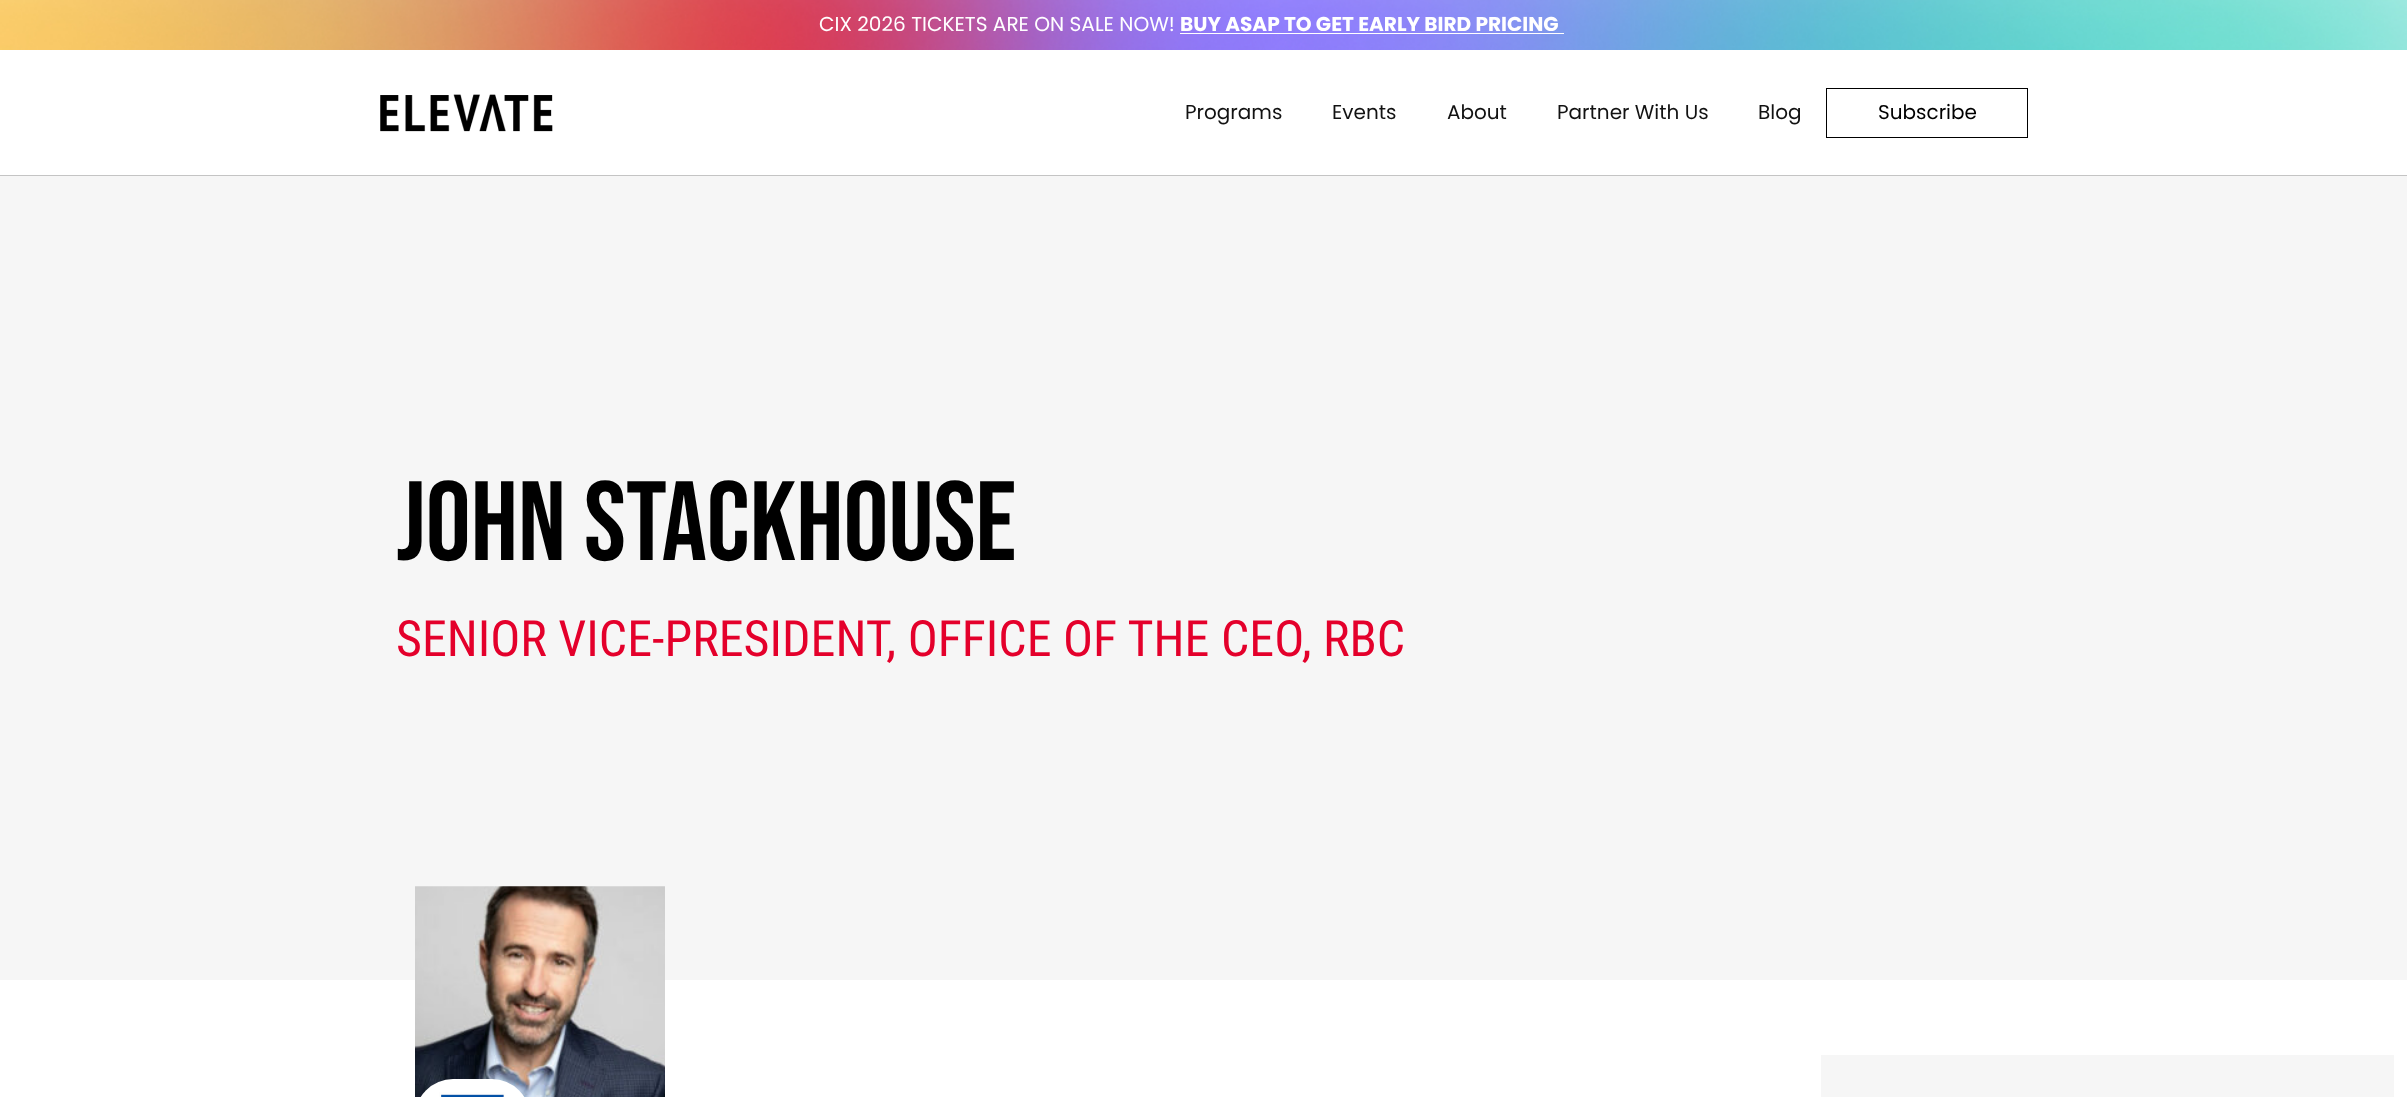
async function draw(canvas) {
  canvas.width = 2407
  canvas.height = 1097
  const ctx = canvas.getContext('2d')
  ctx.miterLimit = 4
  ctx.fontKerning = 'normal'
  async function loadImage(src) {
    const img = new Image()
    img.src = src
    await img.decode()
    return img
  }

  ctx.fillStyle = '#f6f6f6'
  ctx.fillRect(0, 0, 2407, 1097)
  ctx.drawImage(await loadImage('image0.png'), 0, 0, 2407, 50)
  ctx.font = '20.1px Poppins'
  ctx.fillStyle = '#fff'
  ctx.fillText('CIX 2026 TICKETS ARE ON SALE NOW!', 819, 31)
  ctx.font = 'bold 20.1px Poppins'
  ctx.fillText('BUY ASAP TO GET EARLY BIRD PRICING', 1180, 31)
  ctx.fillRect(1180, 33, 384, 1)
  ctx.fillRect(0, 50, 2407, 125)
  ctx.fillStyle = '#c4c4c4'
  ctx.fillRect(0, 175, 2407, 1)
  ctx.drawImage(await loadImage('image1.png'), 380, 94, 173, 38)
  ctx.font = '20px Poppins'
  ctx.fillStyle = '#121212'
  ctx.fillText('Programs', 1185, 119)
  ctx.fillText('Events', 1332, 119)
  ctx.fillText('About', 1447, 119)
  ctx.fillText('Partner With Us', 1557, 119)
  ctx.fillText('Blog', 1758, 119)
  ctx.strokeStyle = '#000'
  ctx.strokeRect(1826.5, 88.5, 201, 49)
  ctx.fillStyle = '#000'
  ctx.fillText('Subscribe', 1878, 119)
  ctx.font = '112.5px Bebas Neue'
  ctx.fillText('John Stackhouse', 396, 560)
  ctx.font = '50px Roboto Condensed'
  ctx.fillStyle = '#e4002b'
  ctx.fillText('SENIOR VICE-PRESIDENT, OFFICE OF THE CEO, RBC', 396, 656)
  ctx.fillStyle = '#fff'
  ctx.fillRect(0, 980, 2407, 117)
  ctx.drawImage(await loadImage('image2.png'), 415, 886, 250, 211)
  ctx.beginPath()
  ctx.roundRect(415, 1079, 115, 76, 57.5)
  ctx.fill()
  ctx.drawImage(await loadImage('image3.png'), 430, 1086, 85, 11)
  ctx.fillStyle = '#f6f6f6'
  ctx.fillRect(1821, 1055, 573, 42)
}

draw(document.querySelector('canvas'))
